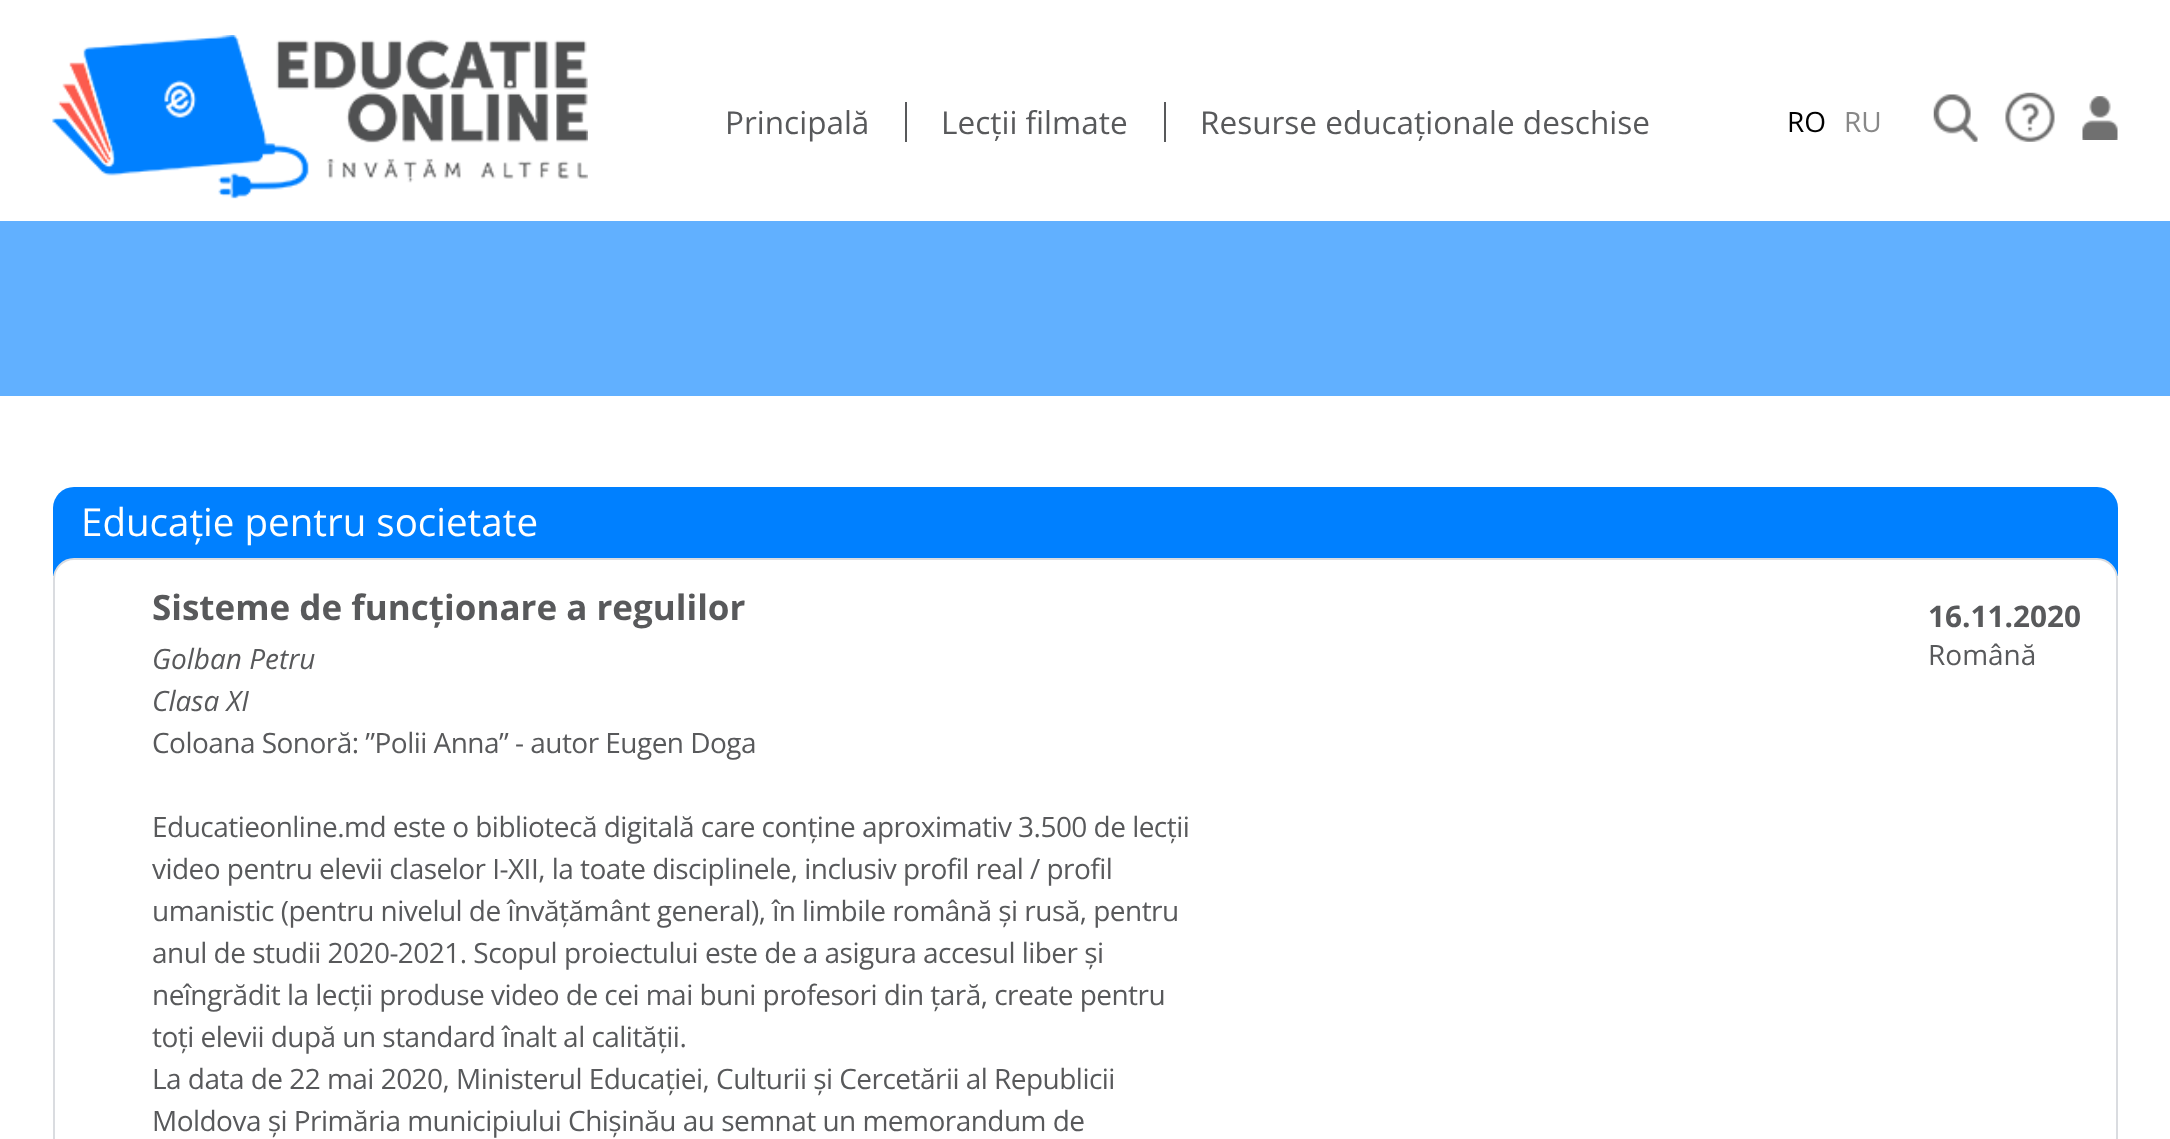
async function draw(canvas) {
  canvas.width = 2170
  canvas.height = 1139
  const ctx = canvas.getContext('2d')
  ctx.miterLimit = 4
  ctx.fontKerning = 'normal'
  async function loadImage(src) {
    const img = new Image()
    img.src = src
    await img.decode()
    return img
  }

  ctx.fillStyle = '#fff'
  ctx.fillRect(0, 0, 2170, 1139)
  ctx.drawImage(await loadImage('image0.png'), 52, 35, 536, 164)
  ctx.font = '31.5px Open Sans'
  ctx.fillStyle = '#58595b'
  ctx.fillText('Principală', 725, 134)
  ctx.fillRect(905, 102, 2, 40)
  ctx.fillText('Lecții filmate', 941, 134)
  ctx.fillRect(1164, 102, 2, 40)
  ctx.fillText('Resurse educaționale deschise', 1200, 134)
  ctx.font = '28px Open Sans'
  ctx.fillStyle = '#000'
  ctx.fillText('RO', 1787, 132)
  ctx.fillStyle = '#888'
  ctx.fillText('RU', 1844, 132)
  ctx.drawImage(await loadImage('image1.png'), 1933, 94, 45, 48)
  ctx.drawImage(await loadImage('image2.png'), 2005, 92, 50, 50)
  ctx.drawImage(await loadImage('image3.png'), 2082, 96, 36, 44)
  ctx.fillStyle = '#61b0ff'
  ctx.fillRect(0, 221, 2170, 175)
  ctx.fillStyle = '#0080ff'
  ctx.beginPath()
  ctx.roundRect(53, 487, 2065, 89, [21, 21, 0, 0])
  ctx.fill()
  ctx.font = '38.5px Open Sans'
  ctx.fillStyle = '#fff'
  ctx.fillText('Educație pentru societate', 81, 536)
  ctx.beginPath()
  ctx.roundRect(54, 559, 2063, 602, 20)
  ctx.fill()
  ctx.strokeStyle = '#dadce0'
  ctx.lineWidth = 2
  ctx.stroke()
  ctx.font = 'bold 35px Open Sans'
  ctx.fillStyle = '#58595b'
  ctx.fillText('Sisteme de funcționare a regulilor', 152, 620)
  ctx.font = 'italic 28px Open Sans'
  ctx.fillText('Golban Petru', 152, 669)
  ctx.fillText('Clasa XI', 152, 711)
  ctx.letterSpacing = '-0.53px'
  ctx.font = '28px Open Sans'
  ctx.fillText('Coloana Sonoră: ”Polii Anna” - autor Eugen Doga', 152, 753)
  ctx.fillText('Educatieonline.md este o bibliotecă digitală care conține aproximativ 3.500 de lecții', 152, 837)
  ctx.fillText('video pentru elevii claselor I-XII, la toate disciplinele, inclusiv profil real / profil', 152, 879)
  ctx.fillText('umanistic (pentru nivelul de învățământ general), în limbile română și rusă, pentru', 152, 921)
  ctx.fillText('anul de studii 2020-2021. Scopul proiectului este de a asigura accesul liber și', 152, 963)
  ctx.fillText('neîngrădit la lecții produse video de cei mai buni profesori din țară, create pentru', 152, 1005)
  ctx.fillText('toți elevii după un standard înalt al calității.', 152, 1047)
  ctx.fillText('La data de 22 mai 2020, Ministerul Educației, Culturii și Cercetării al Republicii', 152, 1089)
  ctx.fillText('Moldova și Primăria municipiului Chișinău au semnat un memorandum de', 152, 1131)
  ctx.letterSpacing = '0px'
  ctx.font = 'bold 29.75px Open Sans'
  ctx.fillText('16.11.2020', 1928, 627)
  ctx.font = '28px Open Sans'
  ctx.fillText('Română', 1928, 665)
}

draw(document.querySelector('canvas'))
